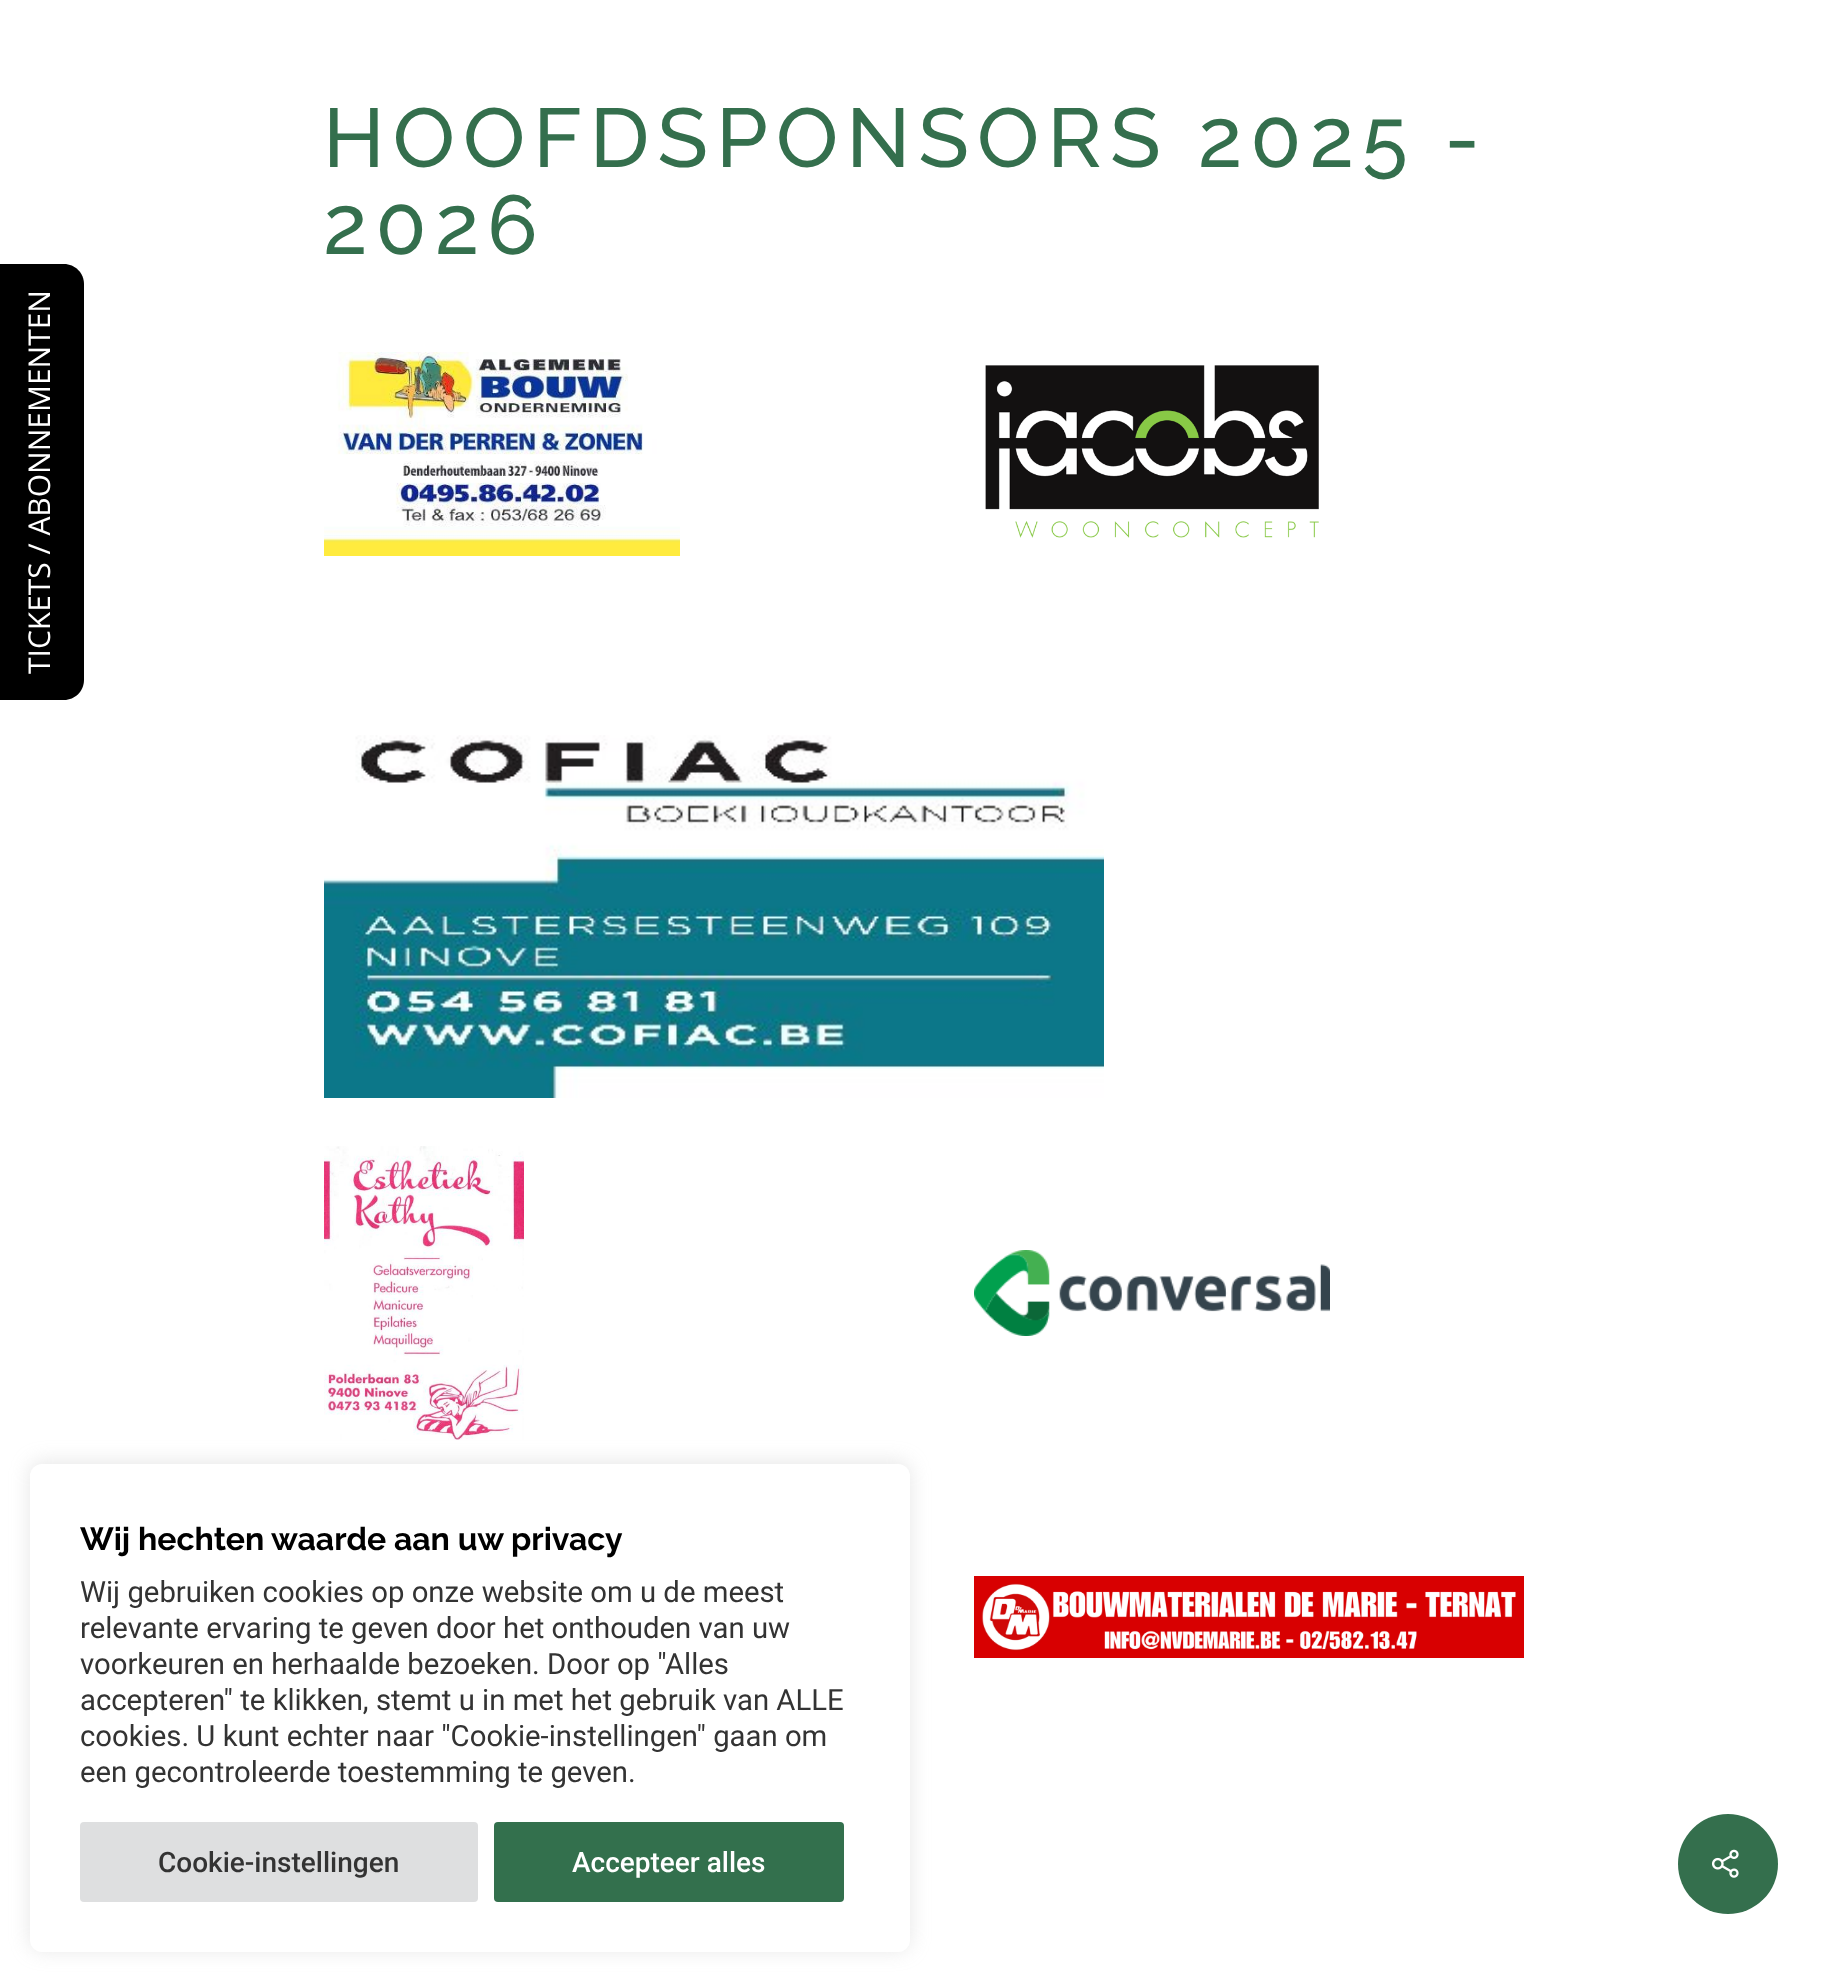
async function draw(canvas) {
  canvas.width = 1845
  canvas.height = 1982
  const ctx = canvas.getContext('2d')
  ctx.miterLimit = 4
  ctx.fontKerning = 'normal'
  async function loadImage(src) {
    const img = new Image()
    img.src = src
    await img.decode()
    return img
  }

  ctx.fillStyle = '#fff'
  ctx.fillRect(0, 0, 1845, 1982)
  ctx.letterSpacing = '8px'
  ctx.font = '500 83.25px Raleway'
  ctx.fillStyle = '#346f4d'
  ctx.fillText('HOOFDSPONSORS 2025 -', 323, 167)
  ctx.fillText('2026', 323, 254)
  ctx.drawImage(await loadImage('image0.png'), 324, 352, 356, 204)
  ctx.drawImage(await loadImage('image1.png'), 985, 365, 334, 173)
  ctx.drawImage(await loadImage('image2.png'), 324, 735, 780, 363)
  ctx.drawImage(await loadImage('image3.png'), 324, 1146, 200, 294)
  ctx.drawImage(await loadImage('image4.png'), 974, 1250, 356, 86)
  ctx.drawImage(await loadImage('image5.png'), 974, 1576, 550, 82)
  ctx.beginPath()
  ctx.arc(1728, 1864, 50, 0, 2 * Math.PI)
  ctx.fill()
  ctx.drawImage(await loadImage('image6.png'), 1711, 1849, 28, 29)
  ctx.fillStyle = '#000'
  ctx.beginPath()
  ctx.moveTo(-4, 700)
  ctx.lineTo(-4, 264)
  ctx.lineTo(64, 264)
  ctx.bezierCurveTo(75, 264, 84, 273, 84, 284)
  ctx.lineTo(84, 680)
  ctx.bezierCurveTo(84, 691, 75, 700, 64, 700)
  ctx.closePath()
  ctx.fill()
  ctx.letterSpacing = '0px'
  ctx.font = '30px Open Sans'
  ctx.fillStyle = '#fff'
  ctx.save()
  ctx.translate(50, 674)
  ctx.rotate(-90 * Math.PI / 180)
  ctx.fillText('TICKETS / ABONNEMENTEN', 0, 0)
  ctx.restore()
  ctx.fillStyle = '#acabab4d'
  ctx.filter = 'blur(10px)'
  ctx.beginPath()
  ctx.roundRect(30, 1462, 880, 488, 12)
  ctx.fill()
  ctx.filter = 'none'
  ctx.fillStyle = '#fff'
  ctx.beginPath()
  ctx.roundRect(30, 1464, 880, 488, 12)
  ctx.fill()
  ctx.font = 'bold 32px Raleway'
  ctx.fillStyle = '#000'
  ctx.fillText('Wij hechten waarde aan uw privacy', 80, 1550)
  ctx.font = '29.3px Roboto'
  ctx.fillStyle = '#333'
  ctx.fillText('Wij gebruiken cookies op onze website om u de meest', 80, 1602)
  ctx.fillText('relevante ervaring te geven door het onthouden van uw', 80, 1638)
  ctx.fillText('voorkeuren en herhaalde bezoeken. Door op "Alles', 80, 1674)
  ctx.fillText('accepteren" te klikken, stemt u in met het gebruik van ALLE', 80, 1710)
  ctx.fillText('cookies. U kunt echter naar "Cookie-instellingen" gaan om', 80, 1746)
  ctx.fillText('een gecontroleerde toestemming te geven.', 80, 1782)
  ctx.fillStyle = '#dedfe0'
  ctx.beginPath()
  ctx.roundRect(80, 1822, 398, 80, 4)
  ctx.fill()
  ctx.font = '500 28px Roboto'
  ctx.fillStyle = '#333'
  ctx.fillText('Cookie-instellingen', 158, 1872)
  ctx.fillStyle = '#33704d'
  ctx.beginPath()
  ctx.roundRect(494, 1822, 350, 80, 4)
  ctx.fill()
  ctx.fillStyle = '#fff'
  ctx.fillText('Accepteer alles', 572, 1872)
}

draw(document.querySelector('canvas'))
